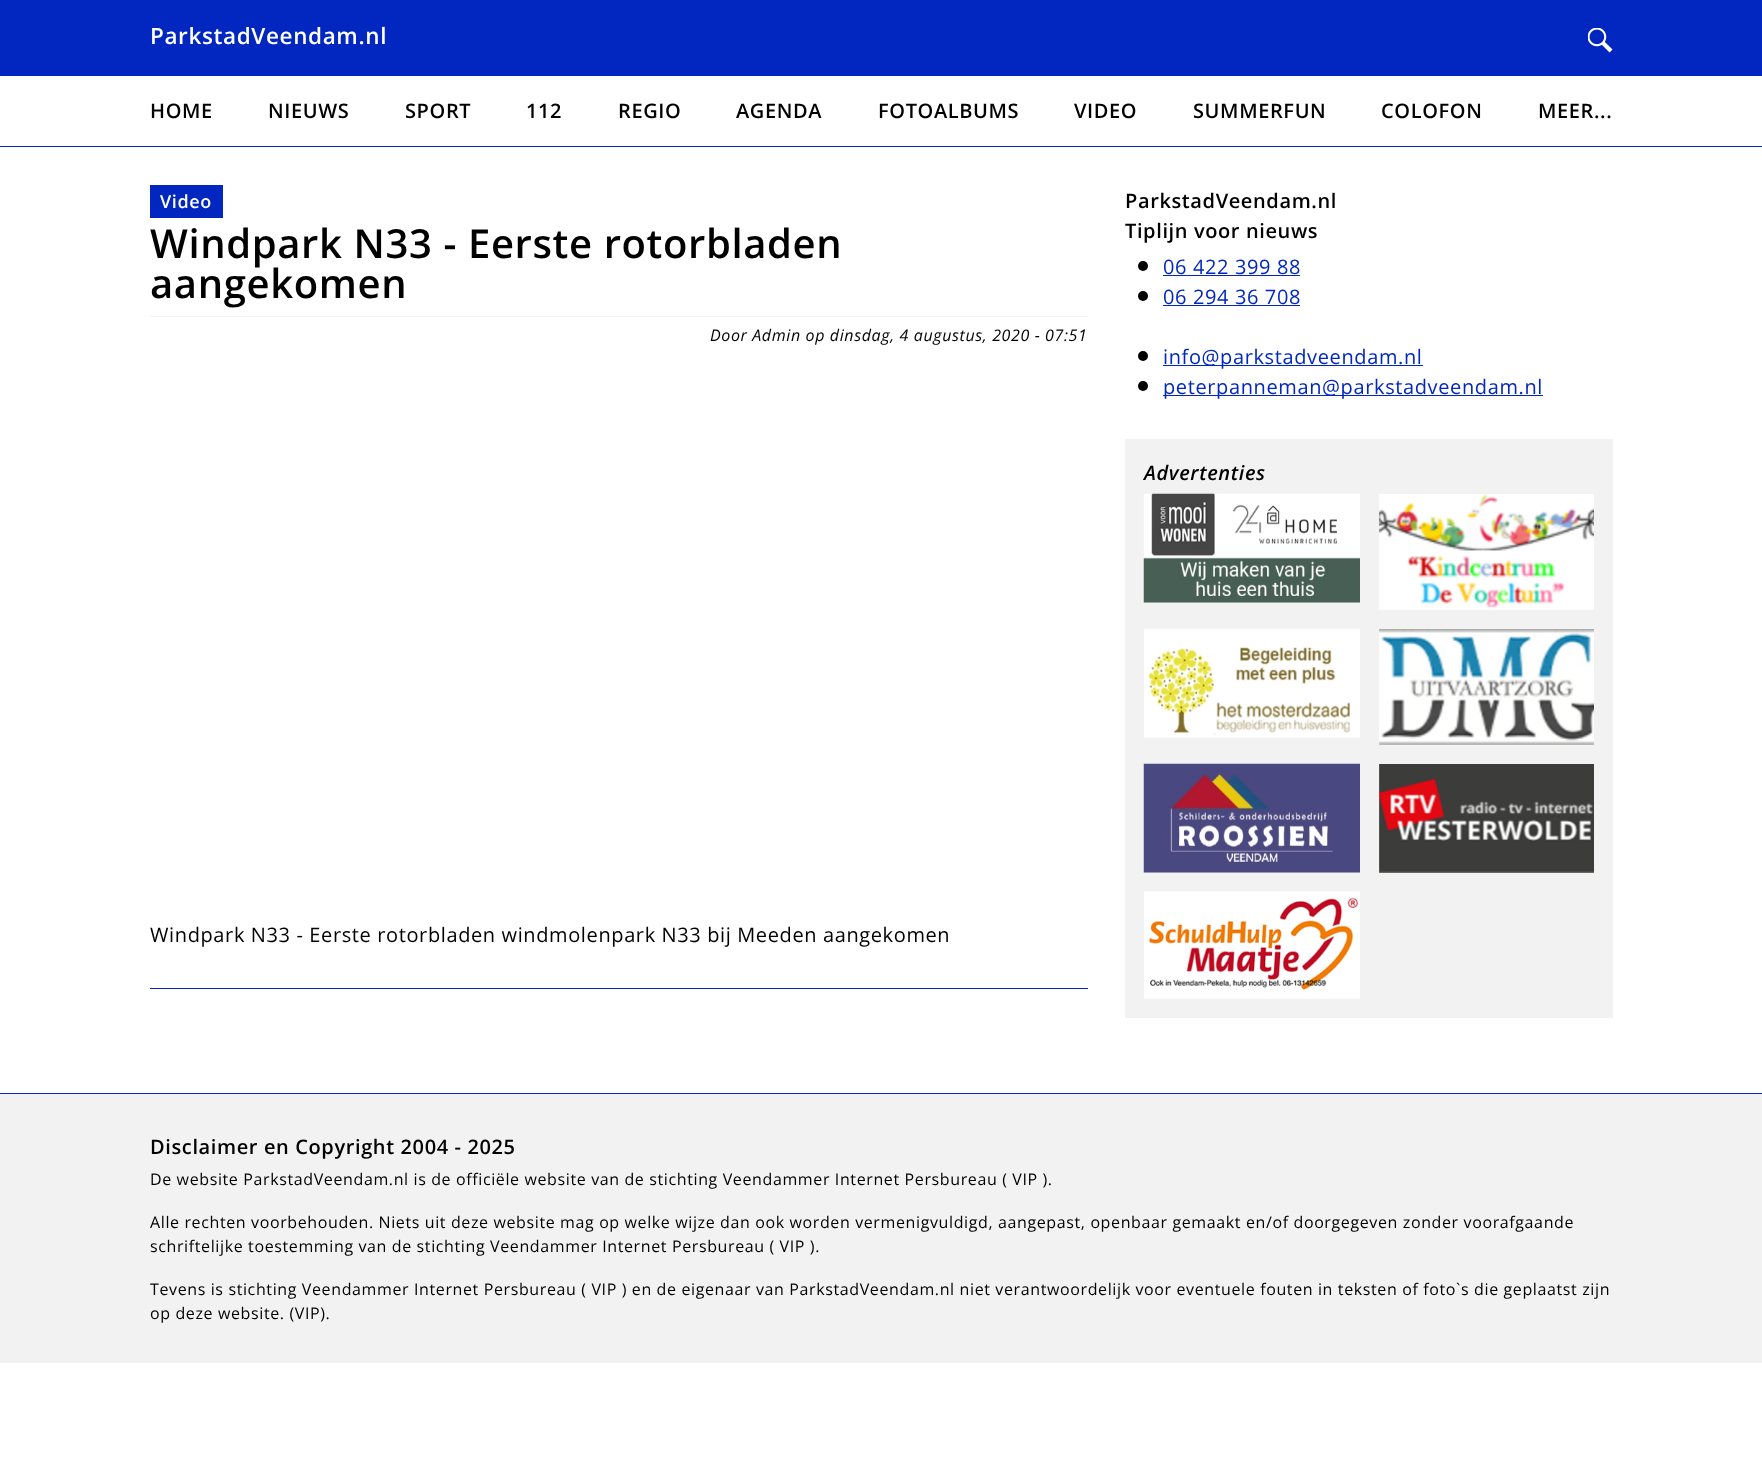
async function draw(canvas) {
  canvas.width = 1762
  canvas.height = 1480
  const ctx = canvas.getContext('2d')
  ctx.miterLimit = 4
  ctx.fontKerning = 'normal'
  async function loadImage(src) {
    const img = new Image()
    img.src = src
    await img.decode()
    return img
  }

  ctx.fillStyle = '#fff'
  ctx.fillRect(0, 0, 1762, 1480)
  ctx.fillStyle = '#0127c0'
  ctx.fillRect(0, 0, 1762, 76)
  ctx.letterSpacing = '0.62px'
  ctx.font = '600 22.5px Open Sans'
  ctx.fillStyle = '#fff'
  ctx.fillText('ParkstadVeendam.nl', 150, 44)
  ctx.drawImage(await loadImage('image0.png'), 1588, 28, 25, 25)
  ctx.fillStyle = '#0127c0'
  ctx.fillRect(0, 146, 1762, 1)
  ctx.font = '600 20px Open Sans'
  ctx.fillStyle = '#000'
  ctx.fillText('HOME', 150, 118)
  ctx.fillText('NIEUWS', 268, 118)
  ctx.fillText('SPORT', 405, 118)
  ctx.fillText('112', 526, 118)
  ctx.fillText('REGIO', 618, 118)
  ctx.fillText('AGENDA', 736, 118)
  ctx.fillText('FOTOALBUMS', 878, 118)
  ctx.fillText('VIDEO', 1074, 118)
  ctx.fillText('SUMMERFUN', 1193, 118)
  ctx.fillText('COLOFON', 1381, 118)
  ctx.fillText('MEER...', 1538, 118)
  ctx.fillStyle = '#0127c0'
  ctx.fillRect(150, 988, 938, 1)
  ctx.fillRect(150, 185, 73, 33)
  ctx.font = '600 18px Open Sans'
  ctx.fillStyle = '#fff'
  ctx.fillText('Video', 160, 208)
  ctx.font = '600 40px Open Sans'
  ctx.fillStyle = '#000'
  ctx.fillText('Windpark N33 - Eerste rotorbladen', 150, 258)
  ctx.fillText('aangekomen', 150, 298)
  ctx.fillStyle = '#f2f2f2'
  ctx.fillRect(150, 316, 938, 1)
  ctx.font = 'italic 16px Open Sans'
  ctx.fillStyle = '#000'
  ctx.fillText('Door Admin op dinsdag, 4 augustus, 2020 - 07:51', 710, 341)
  ctx.font = '20px Open Sans'
  ctx.fillText('Windpark N33 - Eerste rotorbladen windmolenpark N33 bij Meeden aangekomen', 150, 942)
  ctx.font = '600 20px Open Sans'
  ctx.fillText('ParkstadVeendam.nl', 1125, 208)
  ctx.fillText('Tiplijn voor nieuws', 1125, 238)
  ctx.beginPath()
  ctx.arc(1143, 266, 5, 0, 2 * Math.PI)
  ctx.fill()
  ctx.font = '20px Open Sans'
  ctx.fillStyle = '#0127c0'
  ctx.fillText('06 422 399 88', 1163, 274)
  ctx.fillRect(1163, 275, 137, 1)
  ctx.fillStyle = '#000'
  ctx.beginPath()
  ctx.arc(1143, 296, 5, 0, 2 * Math.PI)
  ctx.fill()
  ctx.fillStyle = '#0127c0'
  ctx.fillText('06 294 36 708', 1163, 304)
  ctx.fillRect(1163, 305, 137, 1)
  ctx.fillStyle = '#000'
  ctx.beginPath()
  ctx.arc(1143, 356, 5, 0, 2 * Math.PI)
  ctx.fill()
  ctx.fillStyle = '#0127c0'
  ctx.fillRect(1163, 365, 260, 1)
  ctx.fillText('info@parkstadveendam.nl', 1163, 364)
  ctx.fillStyle = '#000'
  ctx.beginPath()
  ctx.arc(1143, 386, 5, 0, 2 * Math.PI)
  ctx.fill()
  ctx.fillStyle = '#0127c0'
  ctx.fillRect(1163, 395, 380, 1)
  ctx.fillText('peterpanneman@parkstadveendam.nl', 1163, 394)
  ctx.fillStyle = '#f2f2f2'
  ctx.fillRect(1125, 439, 488, 579)
  ctx.font = 'italic 600 20px Open Sans'
  ctx.fillStyle = '#000'
  ctx.fillText('Advertenties', 1144, 480)
  ctx.drawImage(await loadImage('image1.png'), 1143, 493, 217, 110)
  ctx.drawImage(await loadImage('image2.png'), 1379, 494, 215, 116)
  ctx.drawImage(await loadImage('image3.png'), 1144, 629, 216, 109)
  ctx.drawImage(await loadImage('image4.png'), 1379, 629, 215, 116)
  ctx.drawImage(await loadImage('image5.png'), 1143, 763, 217, 110)
  ctx.drawImage(await loadImage('image6.png'), 1379, 764, 215, 109)
  ctx.drawImage(await loadImage('image7.png'), 1144, 891, 216, 108)
  ctx.fillStyle = '#f2f2f2'
  ctx.fillRect(0, 1094, 1762, 269)
  ctx.fillStyle = '#0127c0'
  ctx.fillRect(0, 1093, 1762, 1)
  ctx.font = '600 20px Open Sans'
  ctx.fillStyle = '#000'
  ctx.fillText('Disclaimer en Copyright 2004 - 2025', 150, 1154)
  ctx.font = '16px Open Sans'
  ctx.fillText('De website ParkstadVeendam.nl is de officiële website van de stichting Veendammer Internet Persbureau ( VIP ).', 150, 1185)
  ctx.fillText('Alle rechten voorbehouden. Niets uit deze website mag op welke wijze dan ook worden vermenigvuldigd, aangepast, openbaar gemaakt en/of doorgegeven zonder voorafgaande', 150, 1228)
  ctx.fillText('schriftelijke toestemming van de stichting Veendammer Internet Persbureau ( VIP ).', 150, 1252)
  ctx.fillText('Tevens is stichting Veendammer Internet Persbureau ( VIP ) en de eigenaar van ParkstadVeendam.nl niet verantwoordelijk voor eventuele fouten in teksten of foto`s die geplaatst zijn', 150, 1295)
  ctx.fillText('op deze website. (VIP).', 150, 1319)
}

draw(document.querySelector('canvas'))
